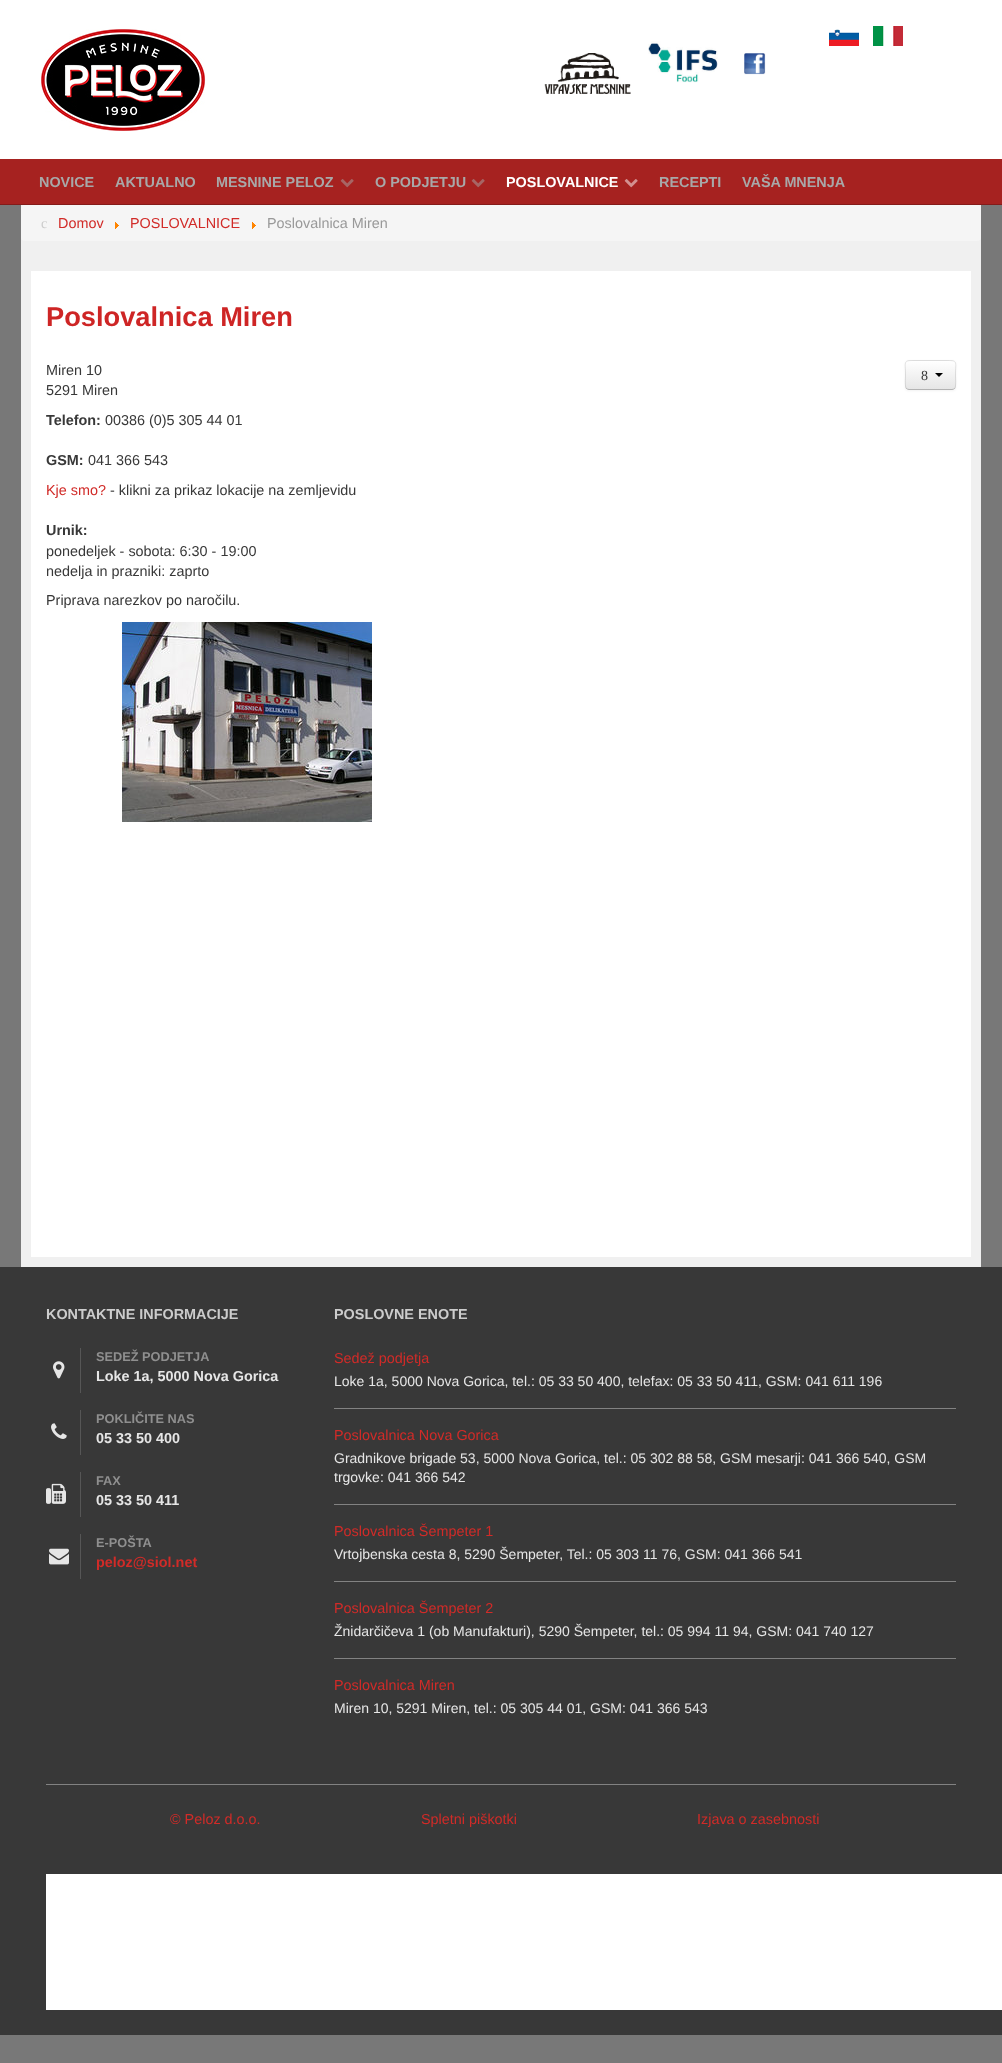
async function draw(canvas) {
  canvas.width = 1002
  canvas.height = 2063
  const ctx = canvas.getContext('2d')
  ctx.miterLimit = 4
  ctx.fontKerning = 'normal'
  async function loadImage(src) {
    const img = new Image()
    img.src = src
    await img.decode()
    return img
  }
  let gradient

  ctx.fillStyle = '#787878'
  ctx.fillRect(0, 0, 1002, 2063)
  ctx.fillStyle = '#fff'
  ctx.fillRect(0, 0, 1002, 159)
  ctx.drawImage(await loadImage('image0.png'), 41, 29, 165, 102)
  ctx.drawImage(await loadImage('image1.png'), 544, 53, 87, 41)
  ctx.drawImage(await loadImage('image2.png'), 648, 41, 70, 42)
  ctx.drawImage(await loadImage('image3.png'), 744, 53, 22, 22)
  ctx.drawImage(await loadImage('image4.png'), 829, 29, 30, 17)
  ctx.drawImage(await loadImage('image5.png'), 873, 26, 30, 20)
  ctx.fillStyle = '#a62220'
  ctx.fillRect(0, 159, 1002, 45)
  ctx.fillStyle = '#841b19'
  ctx.fillRect(0, 204, 1002, 1)
  ctx.font = 'bold 14.4px Liberation Sans'
  ctx.fillStyle = '#a8a8a8'
  ctx.fillText('NOVICE', 39, 187)
  ctx.fillText('AKTUALNO', 115, 187)
  ctx.fillText('MESNINE PELOZ', 216, 187)
  ctx.drawImage(await loadImage('image6.png'), 340, 179, 14, 9)
  ctx.fillText('O PODJETJU', 375, 187)
  ctx.drawImage(await loadImage('image6.png'), 471, 179, 14, 9)
  ctx.fillStyle = '#fff'
  ctx.fillText('POSLOVALNICE', 506, 187)
  ctx.drawImage(await loadImage('image7.png'), 624, 179, 14, 9)
  ctx.fillStyle = '#a8a8a8'
  ctx.fillText('RECEPTI', 659, 187)
  ctx.fillText('VAŠA MNENJA', 742, 187)
  ctx.fillStyle = '#f0f0f0'
  ctx.fillRect(21, 205, 960, 1062)
  ctx.fillStyle = '#f5f5f5'
  ctx.beginPath()
  ctx.roundRect(21, 205, 960, 36, 4)
  ctx.fill()
  ctx.font = '14.4px Liberation Serif'
  ctx.fillStyle = '#ccc'
  ctx.fillText('c', 41, 228)
  ctx.font = '14.4px Liberation Sans'
  ctx.fillStyle = '#d12b28'
  ctx.fillText('Domov', 58, 228)
  ctx.drawImage(await loadImage('image8.png'), 115, 222, 4, 7)
  ctx.fillText('POSLOVALNICE', 130, 228)
  ctx.drawImage(await loadImage('image8.png'), 252, 222, 4, 7)
  ctx.fillStyle = '#999'
  ctx.fillText('Poslovalnica Miren', 267, 228)
  ctx.fillStyle = '#fff'
  ctx.fillRect(31, 271, 940, 986)
  ctx.font = 'bold 27.25px Liberation Sans'
  ctx.fillStyle = '#ce2525'
  ctx.fillText('Poslovalnica Miren', 46, 326)
  ctx.font = '14.4px Liberation Sans'
  ctx.fillStyle = '#383838'
  ctx.fillText('Miren 10', 46, 375)
  ctx.fillText('5291 Miren', 46, 395)
  ctx.font = 'bold 14.4px Liberation Sans'
  ctx.fillText('Telefon:', 46, 425)
  ctx.font = '14.4px Liberation Sans'
  ctx.fillText('00386 (0)5 305 44 01', 105, 425)
  ctx.font = 'bold 14.4px Liberation Sans'
  ctx.fillText('GSM:', 46, 465)
  ctx.font = '14.4px Liberation Sans'
  ctx.fillText('041 366 543', 88, 465)
  ctx.fillStyle = '#d12b28'
  ctx.fillText('Kje smo?', 46, 495)
  ctx.fillStyle = '#383838'
  ctx.fillText('- klikni za prikaz lokacije na zemljevidu', 110, 495)
  ctx.font = 'bold 14.4px Liberation Sans'
  ctx.fillText('Urnik:', 46, 535)
  ctx.font = '14.4px Liberation Sans'
  ctx.fillText('ponedeljek - sobota: 6:30 - 19:00', 46, 556)
  ctx.fillText('nedelja in prazniki: zaprto', 46, 576)
  ctx.fillText('Priprava narezkov po naročilu.', 46, 605)
  ctx.drawImage(await loadImage('image9.png'), 122, 622, 250, 200)
  ctx.fillStyle = '#0000000d'
  ctx.filter = 'blur(1px)'
  ctx.beginPath()
  ctx.roundRect(905, 361, 51, 30, 4)
  ctx.fill()
  ctx.filter = 'none'
  ctx.fillStyle = '#f5f5f5'
  ctx.beginPath()
  ctx.roundRect(905, 360, 51, 30, 4)
  ctx.fill()
  ctx.save()
  ctx.beginPath()
  ctx.roundRect(905, 360, 51, 30, 4)
  ctx.clip()
  gradient = ctx.createLinearGradient(931, 361, 931, 389)
  gradient.addColorStop(0, '#fff')
  gradient.addColorStop(1, '#e6e6e6')
  ctx.fillStyle = gradient
  ctx.fillRect(905, 361, 51, 28)
  ctx.restore()
  ctx.fillStyle = '#fff'
  ctx.beginPath()
  ctx.moveTo(909, 362)
  ctx.lineTo(952, 362)
  ctx.bezierCurveTo(954, 362, 955, 363, 955, 365)
  ctx.bezierCurveTo(955, 359, 949, 361, 945, 361)
  ctx.lineTo(916, 361)
  ctx.bezierCurveTo(912, 361, 906, 359, 906, 365)
  ctx.bezierCurveTo(906, 363, 907, 362, 909, 362)
  ctx.closePath()
  ctx.fill()
  ctx.beginPath()
  ctx.moveTo(954.5, 388.5)
  ctx.bezierCurveTo(954, 389, 953, 389.5, 952, 389.5)
  ctx.lineTo(909, 389.5)
  ctx.bezierCurveTo(908, 389.5, 907, 389, 906.5, 388.5)
  ctx.strokeStyle = '#b3b3b3'
  ctx.stroke()
  ctx.beginPath()
  ctx.moveTo(906.5, 388.5)
  ctx.bezierCurveTo(904.5, 386.5, 905.5, 378, 905.5, 375)
  ctx.bezierCurveTo(905.5, 361, 902.5, 360.5, 916, 360.5)
  ctx.lineTo(945, 360.5)
  ctx.bezierCurveTo(958.5, 360.5, 955.5, 361, 955.5, 375)
  ctx.bezierCurveTo(955.5, 378, 956.5, 386.5, 954.5, 388.5)
  ctx.strokeStyle = '#0000001a'
  ctx.stroke()
  ctx.font = '14px Liberation Serif'
  ctx.fillStyle = '#383838'
  ctx.fillText('8', 921, 380)
  ctx.fillStyle = '#000'
  ctx.beginPath()
  ctx.moveTo(935, 373)
  ctx.lineTo(943, 373)
  ctx.lineTo(939, 377)
  ctx.closePath()
  ctx.fill()
  ctx.fillStyle = '#383838'
  ctx.fillRect(0, 1267, 1002, 768)
  ctx.font = 'bold 14.4px Liberation Sans'
  ctx.fillStyle = '#ccc'
  ctx.fillText('KONTAKTNE INFORMACIJE', 46, 1319)
  ctx.fillStyle = '#565656'
  ctx.fillRect(80, 1348, 1, 45)
  ctx.drawImage(await loadImage('image10.png'), 53, 1361, 12, 18)
  ctx.font = 'bold 12.75px Liberation Sans'
  ctx.fillStyle = '#8f8f8f'
  ctx.fillText('SEDEŽ PODJETJA', 96, 1361)
  ctx.font = 'bold 14.4px Liberation Sans'
  ctx.fillStyle = '#e6e6e6'
  ctx.fillText('Loke 1a, 5000 Nova Gorica', 96, 1381)
  ctx.fillStyle = '#565656'
  ctx.fillRect(80, 1410, 1, 45)
  ctx.drawImage(await loadImage('image11.png'), 51, 1423, 16, 16)
  ctx.font = 'bold 12.75px Liberation Sans'
  ctx.fillStyle = '#8f8f8f'
  ctx.fillText('POKLIČITE NAS', 96, 1423)
  ctx.font = 'bold 14.4px Liberation Sans'
  ctx.fillStyle = '#e6e6e6'
  ctx.fillText('05 33 50 400', 96, 1443)
  ctx.fillStyle = '#565656'
  ctx.fillRect(80, 1472, 1, 45)
  ctx.drawImage(await loadImage('image12.png'), 46, 1483, 20, 21)
  ctx.font = 'bold 12.75px Liberation Sans'
  ctx.fillStyle = '#8f8f8f'
  ctx.fillText('FAX', 96, 1485)
  ctx.font = 'bold 14.4px Liberation Sans'
  ctx.fillStyle = '#e6e6e6'
  ctx.fillText('05 33 50 411', 96, 1505)
  ctx.fillStyle = '#565656'
  ctx.fillRect(80, 1534, 1, 45)
  ctx.drawImage(await loadImage('image13.png'), 49, 1548, 20, 17)
  ctx.font = 'bold 12.75px Liberation Sans'
  ctx.fillStyle = '#8f8f8f'
  ctx.fillText('E-POŠTA', 96, 1547)
  ctx.font = 'bold 14.4px Liberation Sans'
  ctx.fillStyle = '#d12b28'
  ctx.fillText('peloz@siol.net', 96, 1567)
  ctx.fillStyle = '#ccc'
  ctx.fillText('POSLOVNE ENOTE', 334, 1319)
  ctx.fillStyle = '#828282'
  ctx.fillRect(334, 1408, 622, 1)
  ctx.font = '14.4px Liberation Sans'
  ctx.fillStyle = '#d12b28'
  ctx.fillText('Sedež podjetja', 334, 1363)
  ctx.font = '14px Liberation Sans'
  ctx.fillStyle = '#e6e6e6'
  ctx.fillText('Loke 1a, 5000 Nova Gorica, tel.: 05 33 50 400, telefax: 05 33 50 411, GSM: 041 611 196', 334, 1386)
  ctx.fillStyle = '#828282'
  ctx.fillRect(334, 1504, 622, 1)
  ctx.font = '14.4px Liberation Sans'
  ctx.fillStyle = '#d12b28'
  ctx.fillText('Poslovalnica Nova Gorica', 334, 1440)
  ctx.font = '14px Liberation Sans'
  ctx.fillStyle = '#e6e6e6'
  ctx.fillText('Gradnikove brigade 53, 5000 Nova Gorica, tel.: 05 302 88 58, GSM mesarji: 041 366 540, GSM', 334, 1463)
  ctx.fillText('trgovke: 041 366 542', 334, 1482)
  ctx.fillStyle = '#828282'
  ctx.fillRect(334, 1581, 622, 1)
  ctx.font = '14.4px Liberation Sans'
  ctx.fillStyle = '#d12b28'
  ctx.fillText('Poslovalnica Šempeter 1', 334, 1536)
  ctx.font = '14px Liberation Sans'
  ctx.fillStyle = '#e6e6e6'
  ctx.fillText('Vrtojbenska cesta 8, 5290 Šempeter, Tel.: 05 303 11 76, GSM: 041 366 541', 334, 1559)
  ctx.fillStyle = '#828282'
  ctx.fillRect(334, 1658, 622, 1)
  ctx.font = '14.4px Liberation Sans'
  ctx.fillStyle = '#d12b28'
  ctx.fillText('Poslovalnica Šempeter 2', 334, 1613)
  ctx.font = '14px Liberation Sans'
  ctx.fillStyle = '#e6e6e6'
  ctx.fillText('Žnidarčičeva 1 (ob Manufakturi), 5290 Šempeter, tel.: 05 994 11 94, GSM: 041 740 127', 334, 1636)
  ctx.font = '14.4px Liberation Sans'
  ctx.fillStyle = '#d12b28'
  ctx.fillText('Poslovalnica Miren', 334, 1690)
  ctx.font = '14px Liberation Sans'
  ctx.fillStyle = '#e6e6e6'
  ctx.fillText('Miren 10, 5291 Miren, tel.: 05 305 44 01, GSM: 041 366 543', 334, 1713)
  ctx.fillStyle = '#828282'
  ctx.fillRect(46, 1784, 910, 1)
  ctx.font = '14.4px Liberation Sans'
  ctx.fillStyle = '#d12b28'
  ctx.fillText('© Peloz d.o.o.', 170, 1824)
  ctx.fillText('Spletni piškotki', 421, 1824)
  ctx.fillText('Izjava o zasebnosti', 697, 1824)
  ctx.fillStyle = '#fff'
  ctx.fillRect(46, 1874, 956, 136)
}

draw(document.querySelector('canvas'))
